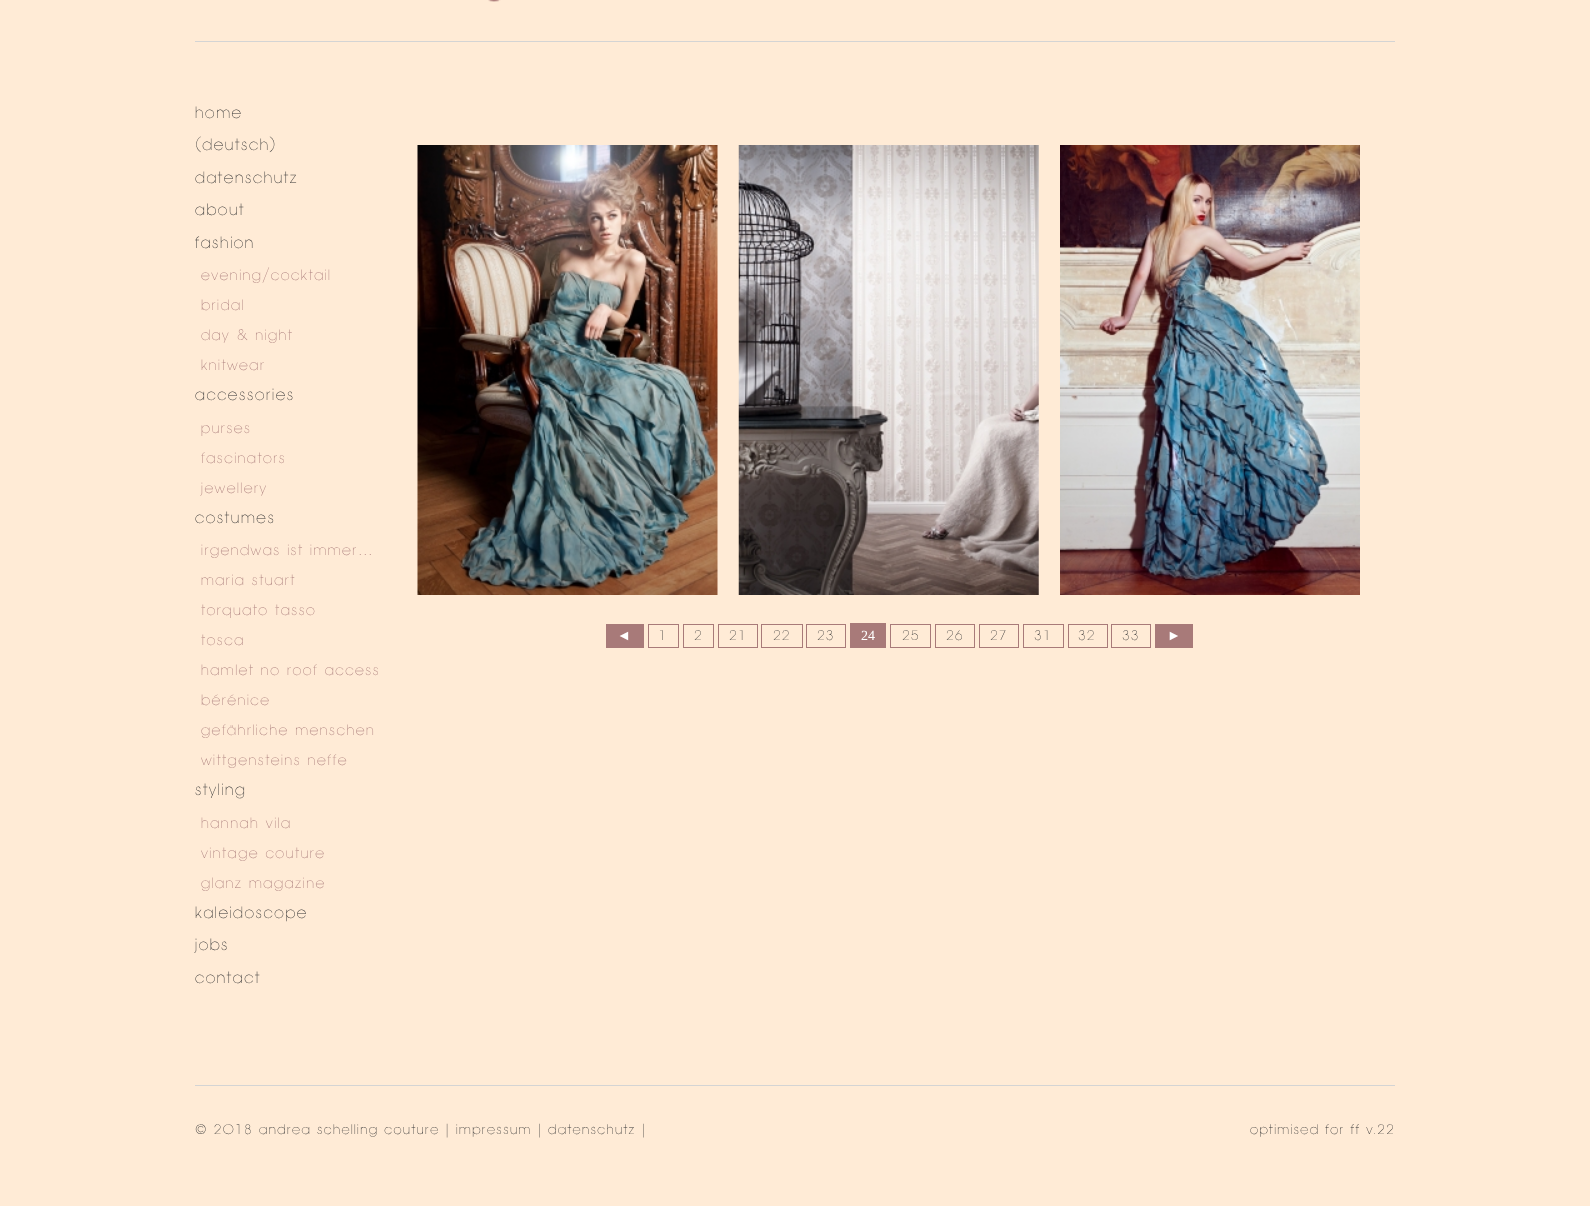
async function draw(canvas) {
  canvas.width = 1590
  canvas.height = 1206
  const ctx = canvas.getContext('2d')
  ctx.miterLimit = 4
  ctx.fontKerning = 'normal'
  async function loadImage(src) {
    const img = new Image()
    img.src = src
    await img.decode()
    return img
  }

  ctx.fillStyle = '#ffebd6'
  ctx.fillRect(0, 0, 1590, 1206)
  ctx.fillStyle = '#d4d4d4'
  ctx.fillRect(195, 41, 1200, 1)
  ctx.drawImage(await loadImage('image0.png'), 488, 0, 13, 2)
  ctx.letterSpacing = '1.6px'
  ctx.font = '200 16.25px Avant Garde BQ'
  ctx.fillStyle = '#333'
  ctx.fillText('home', 195, 118)
  ctx.fillText('(deutsch)', 195, 150)
  ctx.fillText('datenschutz', 195, 183)
  ctx.fillText('about', 195, 215)
  ctx.fillText('fashion', 195, 248)
  ctx.letterSpacing = '1.5px'
  ctx.font = '200 15px Avant Garde BQ'
  ctx.fillStyle = '#a87a79'
  ctx.fillText('evening/cocktail', 201, 280)
  ctx.fillText('bridal', 201, 310)
  ctx.fillText('day & night', 201, 340)
  ctx.fillText('knitwear', 201, 370)
  ctx.letterSpacing = '1.6px'
  ctx.font = '200 16.25px Avant Garde BQ'
  ctx.fillStyle = '#333'
  ctx.fillText('accessories', 195, 400)
  ctx.letterSpacing = '1.5px'
  ctx.font = '200 15px Avant Garde BQ'
  ctx.fillStyle = '#a87a79'
  ctx.fillText('purses', 201, 433)
  ctx.fillText('fascinators', 201, 463)
  ctx.fillText('jewellery', 201, 493)
  ctx.letterSpacing = '1.6px'
  ctx.font = '200 16.25px Avant Garde BQ'
  ctx.fillStyle = '#333'
  ctx.fillText('costumes', 195, 523)
  ctx.letterSpacing = '1.5px'
  ctx.font = '200 15px Avant Garde BQ'
  ctx.fillStyle = '#a87a79'
  ctx.fillText('irgendwas ist immer…', 201, 555)
  ctx.fillText('maria stuart', 201, 585)
  ctx.fillText('torquato tasso', 201, 615)
  ctx.fillText('tosca', 201, 645)
  ctx.fillText('hamlet no roof access', 201, 675)
  ctx.fillText('bérénice', 201, 705)
  ctx.fillText('gefährliche menschen', 201, 735)
  ctx.fillText('wittgensteins neffe', 201, 765)
  ctx.letterSpacing = '1.6px'
  ctx.font = '200 16.25px Avant Garde BQ'
  ctx.fillStyle = '#333'
  ctx.fillText('styling', 195, 795)
  ctx.letterSpacing = '1.5px'
  ctx.font = '200 15px Avant Garde BQ'
  ctx.fillStyle = '#a87a79'
  ctx.fillText('hannah vila', 201, 828)
  ctx.fillText('vintage couture', 201, 858)
  ctx.fillText('glanz magazine', 201, 888)
  ctx.letterSpacing = '1.6px'
  ctx.font = '200 16.25px Avant Garde BQ'
  ctx.fillStyle = '#333'
  ctx.fillText('kaleidoscope', 195, 918)
  ctx.fillText('jobs', 195, 950)
  ctx.fillText('contact', 195, 983)
  ctx.drawImage(await loadImage('image1.png'), 417, 145, 301, 450)
  ctx.drawImage(await loadImage('image2.png'), 738, 145, 301, 450)
  ctx.drawImage(await loadImage('image3.png'), 1060, 145, 300, 450)
  ctx.fillStyle = '#a87a79'
  ctx.fillRect(606, 624, 38, 24)
  ctx.letterSpacing = '1px'
  ctx.font = '14px Liberation Serif'
  ctx.fillStyle = '#fff'
  ctx.fillText('◄', 617, 640)
  ctx.strokeStyle = '#a87a79'
  ctx.strokeRect(648.5, 624.5, 30, 23)
  ctx.font = '200 14px Avant Garde BQ'
  ctx.fillStyle = '#333'
  ctx.fillText('1', 658, 640)
  ctx.strokeRect(683.5, 624.5, 30, 23)
  ctx.fillText('2', 694, 640)
  ctx.strokeRect(718.5, 624.5, 39, 23)
  ctx.fillText('21', 729, 640)
  ctx.strokeRect(761.5, 624.5, 41, 23)
  ctx.fillText('22', 773, 640)
  ctx.strokeRect(806.5, 624.5, 39, 23)
  ctx.fillText('23', 817, 640)
  ctx.fillStyle = '#a87a79'
  ctx.fillRect(850, 623, 36, 25)
  ctx.letterSpacing = '0px'
  ctx.font = '14px Liberation Serif'
  ctx.fillStyle = '#fff'
  ctx.fillText('24', 861, 640)
  ctx.strokeRect(890.5, 624.5, 40, 23)
  ctx.letterSpacing = '1px'
  ctx.font = '200 14px Avant Garde BQ'
  ctx.fillStyle = '#333'
  ctx.fillText('25', 902, 640)
  ctx.strokeRect(935.5, 624.5, 39, 23)
  ctx.fillText('26', 946, 640)
  ctx.strokeRect(979.5, 624.5, 39, 23)
  ctx.fillText('27', 990, 640)
  ctx.strokeRect(1023.5, 624.5, 40, 23)
  ctx.fillText('31', 1034, 640)
  ctx.strokeRect(1068.5, 624.5, 39, 23)
  ctx.fillText('32', 1078, 640)
  ctx.strokeRect(1111.5, 624.5, 39, 23)
  ctx.fillText('33', 1122, 640)
  ctx.fillStyle = '#a87a79'
  ctx.fillRect(1155, 624, 38, 24)
  ctx.font = '14px Liberation Serif'
  ctx.fillStyle = '#fff'
  ctx.fillText('►', 1167, 640)
  ctx.fillStyle = '#d4d4d4'
  ctx.fillRect(195, 1085, 1200, 1)
  ctx.letterSpacing = '1.38px'
  ctx.font = '200 13.75px Avant Garde BQ'
  ctx.fillStyle = '#333'
  ctx.fillText('© 2018 andrea schelling couture | impressum | datenschutz |', 195, 1134)
  ctx.fillText('optimised for ff v.22', 1250, 1134)
}

draw(document.querySelector('canvas'))
